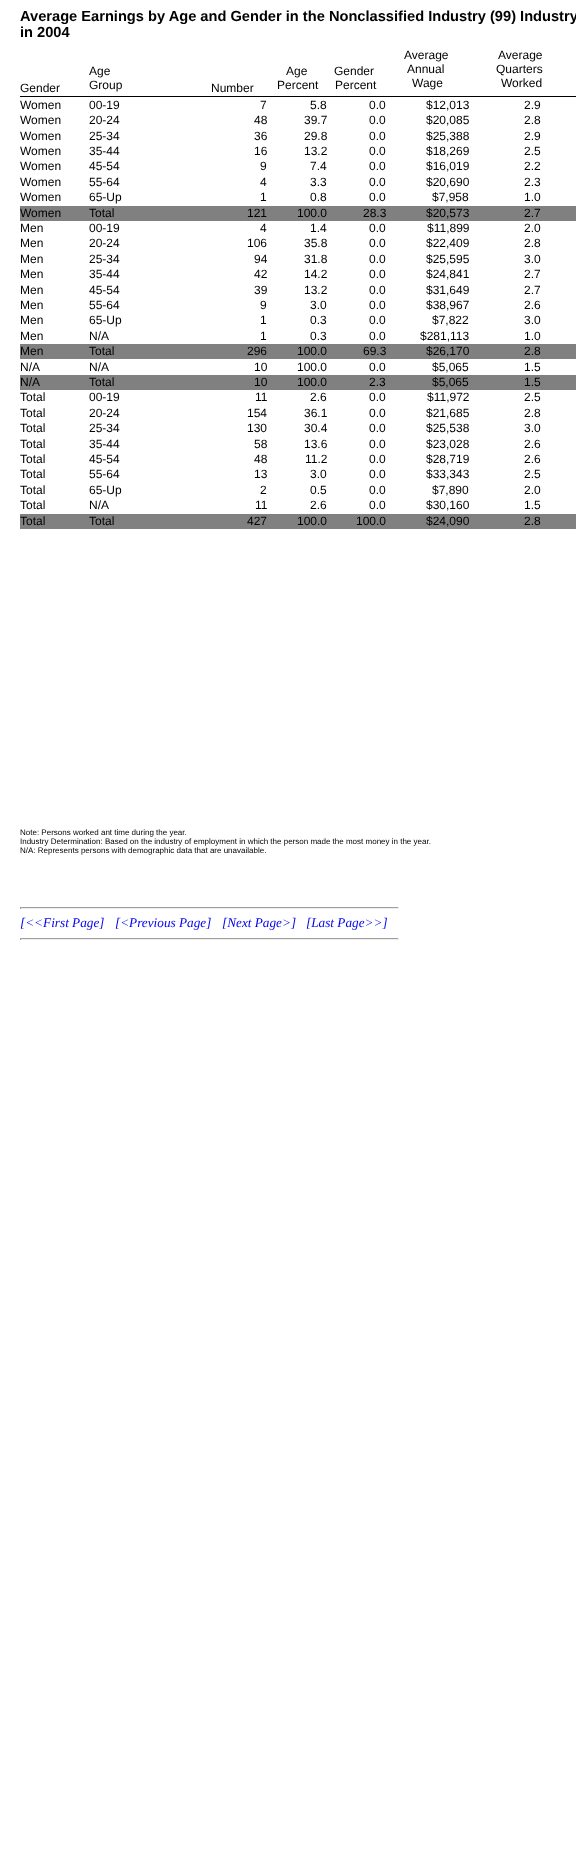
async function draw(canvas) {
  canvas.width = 576
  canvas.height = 1865
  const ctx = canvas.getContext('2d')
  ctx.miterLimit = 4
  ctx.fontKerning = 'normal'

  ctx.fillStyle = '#fff'
  ctx.fillRect(0, 0, 576, 1865)
  ctx.font = 'bold 14.65px Liberation Sans'
  ctx.fillStyle = '#000'
  ctx.fillText('Average Earnings by Age and Gender in the Nonclassified Industry (99) Industry', 20, 21)
  ctx.fillText('in 2004', 20, 37)
  ctx.font = '12px Liberation Sans'
  ctx.fillText('Gender', 20, 92)
  ctx.fillText('Age', 89, 75)
  ctx.fillText('Group', 89, 89)
  ctx.fillText('Number', 211, 92)
  ctx.fillText('Age', 286, 75)
  ctx.fillText('Percent', 277, 89)
  ctx.fillText('Gender', 334, 75)
  ctx.fillText('Percent', 335, 89)
  ctx.fillText('Average', 404, 59)
  ctx.fillText('Annual', 407, 73)
  ctx.fillText('Wage', 412, 87)
  ctx.fillText('Average', 498, 59)
  ctx.fillText('Quarters', 496, 73)
  ctx.fillText('Worked', 501, 87)
  ctx.fillRect(20, 96, 556, 1)
  ctx.fillText('Women', 20, 109)
  ctx.fillText('00-19', 89, 109)
  ctx.fillText('7', 260, 109)
  ctx.fillText('5.8', 310, 109)
  ctx.fillText('0.0', 369, 109)
  ctx.fillText('$12,013', 426, 109)
  ctx.fillText('2.9', 524, 109)
  ctx.fillText('Women', 20, 124)
  ctx.fillText('20-24', 89, 124)
  ctx.fillText('48', 254, 124)
  ctx.fillText('39.7', 304, 124)
  ctx.fillText('0.0', 369, 124)
  ctx.fillText('$20,085', 426, 124)
  ctx.fillText('2.8', 524, 124)
  ctx.fillText('Women', 20, 140)
  ctx.fillText('25-34', 89, 140)
  ctx.fillText('36', 254, 140)
  ctx.fillText('29.8', 304, 140)
  ctx.fillText('0.0', 369, 140)
  ctx.fillText('$25,388', 426, 140)
  ctx.fillText('2.9', 524, 140)
  ctx.fillText('Women', 20, 155)
  ctx.fillText('35-44', 89, 155)
  ctx.fillText('16', 254, 155)
  ctx.fillText('13.2', 304, 155)
  ctx.fillText('0.0', 369, 155)
  ctx.fillText('$18,269', 426, 155)
  ctx.fillText('2.5', 524, 155)
  ctx.fillText('Women', 20, 170)
  ctx.fillText('45-54', 89, 170)
  ctx.fillText('9', 260, 170)
  ctx.fillText('7.4', 310, 170)
  ctx.fillText('0.0', 369, 170)
  ctx.fillText('$16,019', 426, 170)
  ctx.fillText('2.2', 524, 170)
  ctx.fillText('Women', 20, 186)
  ctx.fillText('55-64', 89, 186)
  ctx.fillText('4', 260, 186)
  ctx.fillText('3.3', 310, 186)
  ctx.fillText('0.0', 369, 186)
  ctx.fillText('$20,690', 426, 186)
  ctx.fillText('2.3', 524, 186)
  ctx.fillText('Women', 20, 201)
  ctx.fillText('65-Up', 89, 201)
  ctx.fillText('1', 260, 201)
  ctx.fillText('0.8', 310, 201)
  ctx.fillText('0.0', 369, 201)
  ctx.fillText('$7,958', 432, 201)
  ctx.fillText('1.0', 524, 201)
  ctx.fillStyle = '#808080'
  ctx.fillRect(20, 206, 556, 15)
  ctx.fillStyle = '#000'
  ctx.fillText('Women', 20, 217)
  ctx.fillText('Total', 89, 217)
  ctx.fillText('121', 247, 217)
  ctx.fillText('100.0', 297, 217)
  ctx.fillText('28.3', 363, 217)
  ctx.fillText('$20,573', 426, 217)
  ctx.fillText('2.7', 524, 217)
  ctx.fillText('Men', 20, 232)
  ctx.fillText('00-19', 89, 232)
  ctx.fillText('4', 260, 232)
  ctx.fillText('1.4', 310, 232)
  ctx.fillText('0.0', 369, 232)
  ctx.fillText('$11,899', 427, 232)
  ctx.fillText('2.0', 524, 232)
  ctx.fillText('Men', 20, 247)
  ctx.fillText('20-24', 89, 247)
  ctx.fillText('106', 247, 247)
  ctx.fillText('35.8', 304, 247)
  ctx.fillText('0.0', 369, 247)
  ctx.fillText('$22,409', 426, 247)
  ctx.fillText('2.8', 524, 247)
  ctx.fillText('Men', 20, 263)
  ctx.fillText('25-34', 89, 263)
  ctx.fillText('94', 254, 263)
  ctx.fillText('31.8', 304, 263)
  ctx.fillText('0.0', 369, 263)
  ctx.fillText('$25,595', 426, 263)
  ctx.fillText('3.0', 524, 263)
  ctx.fillText('Men', 20, 278)
  ctx.fillText('35-44', 89, 278)
  ctx.fillText('42', 254, 278)
  ctx.fillText('14.2', 304, 278)
  ctx.fillText('0.0', 369, 278)
  ctx.fillText('$24,841', 426, 278)
  ctx.fillText('2.7', 524, 278)
  ctx.fillText('Men', 20, 294)
  ctx.fillText('45-54', 89, 294)
  ctx.fillText('39', 254, 294)
  ctx.fillText('13.2', 304, 294)
  ctx.fillText('0.0', 369, 294)
  ctx.fillText('$31,649', 426, 294)
  ctx.fillText('2.7', 524, 294)
  ctx.fillText('Men', 20, 309)
  ctx.fillText('55-64', 89, 309)
  ctx.fillText('9', 260, 309)
  ctx.fillText('3.0', 310, 309)
  ctx.fillText('0.0', 369, 309)
  ctx.fillText('$38,967', 426, 309)
  ctx.fillText('2.6', 524, 309)
  ctx.fillText('Men', 20, 324)
  ctx.fillText('65-Up', 89, 324)
  ctx.fillText('1', 260, 324)
  ctx.fillText('0.3', 310, 324)
  ctx.fillText('0.0', 369, 324)
  ctx.fillText('$7,822', 432, 324)
  ctx.fillText('3.0', 524, 324)
  ctx.fillText('Men', 20, 340)
  ctx.fillText('N/A', 89, 340)
  ctx.fillText('1', 260, 340)
  ctx.fillText('0.3', 310, 340)
  ctx.fillText('0.0', 369, 340)
  ctx.fillText('$281,113', 420, 340)
  ctx.fillText('1.0', 524, 340)
  ctx.fillStyle = '#808080'
  ctx.fillRect(20, 344, 556, 15)
  ctx.fillStyle = '#000'
  ctx.fillText('Men', 20, 355)
  ctx.fillText('Total', 89, 355)
  ctx.fillText('296', 247, 355)
  ctx.fillText('100.0', 297, 355)
  ctx.fillText('69.3', 363, 355)
  ctx.fillText('$26,170', 426, 355)
  ctx.fillText('2.8', 524, 355)
  ctx.fillText('N/A', 20, 371)
  ctx.fillText('N/A', 89, 371)
  ctx.fillText('10', 254, 371)
  ctx.fillText('100.0', 297, 371)
  ctx.fillText('0.0', 369, 371)
  ctx.fillText('$5,065', 432, 371)
  ctx.fillText('1.5', 524, 371)
  ctx.fillStyle = '#808080'
  ctx.fillRect(20, 375, 556, 15)
  ctx.fillStyle = '#000'
  ctx.fillText('N/A', 20, 386)
  ctx.fillText('Total', 89, 386)
  ctx.fillText('10', 254, 386)
  ctx.fillText('100.0', 297, 386)
  ctx.fillText('2.3', 369, 386)
  ctx.fillText('$5,065', 432, 386)
  ctx.fillText('1.5', 524, 386)
  ctx.fillText('Total', 20, 401)
  ctx.fillText('00-19', 89, 401)
  ctx.fillText('11', 255, 401)
  ctx.fillText('2.6', 310, 401)
  ctx.fillText('0.0', 369, 401)
  ctx.fillText('$11,972', 427, 401)
  ctx.fillText('2.5', 524, 401)
  ctx.fillText('Total', 20, 417)
  ctx.fillText('20-24', 89, 417)
  ctx.fillText('154', 247, 417)
  ctx.fillText('36.1', 304, 417)
  ctx.fillText('0.0', 369, 417)
  ctx.fillText('$21,685', 426, 417)
  ctx.fillText('2.8', 524, 417)
  ctx.fillText('Total', 20, 432)
  ctx.fillText('25-34', 89, 432)
  ctx.fillText('130', 247, 432)
  ctx.fillText('30.4', 304, 432)
  ctx.fillText('0.0', 369, 432)
  ctx.fillText('$25,538', 426, 432)
  ctx.fillText('3.0', 524, 432)
  ctx.fillText('Total', 20, 448)
  ctx.fillText('35-44', 89, 448)
  ctx.fillText('58', 254, 448)
  ctx.fillText('13.6', 304, 448)
  ctx.fillText('0.0', 369, 448)
  ctx.fillText('$23,028', 426, 448)
  ctx.fillText('2.6', 524, 448)
  ctx.fillText('Total', 20, 463)
  ctx.fillText('45-54', 89, 463)
  ctx.fillText('48', 254, 463)
  ctx.fillText('11.2', 305, 463)
  ctx.fillText('0.0', 369, 463)
  ctx.fillText('$28,719', 426, 463)
  ctx.fillText('2.6', 524, 463)
  ctx.fillText('Total', 20, 478)
  ctx.fillText('55-64', 89, 478)
  ctx.fillText('13', 254, 478)
  ctx.fillText('3.0', 310, 478)
  ctx.fillText('0.0', 369, 478)
  ctx.fillText('$33,343', 426, 478)
  ctx.fillText('2.5', 524, 478)
  ctx.fillText('Total', 20, 494)
  ctx.fillText('65-Up', 89, 494)
  ctx.fillText('2', 260, 494)
  ctx.fillText('0.5', 310, 494)
  ctx.fillText('0.0', 369, 494)
  ctx.fillText('$7,890', 432, 494)
  ctx.fillText('2.0', 524, 494)
  ctx.fillText('Total', 20, 509)
  ctx.fillText('N/A', 89, 509)
  ctx.fillText('11', 255, 509)
  ctx.fillText('2.6', 310, 509)
  ctx.fillText('0.0', 369, 509)
  ctx.fillText('$30,160', 426, 509)
  ctx.fillText('1.5', 524, 509)
  ctx.fillStyle = '#808080'
  ctx.fillRect(20, 514, 556, 15)
  ctx.fillStyle = '#000'
  ctx.fillText('Total', 20, 525)
  ctx.fillText('Total', 89, 525)
  ctx.fillText('427', 247, 525)
  ctx.fillText('100.0', 297, 525)
  ctx.fillText('100.0', 356, 525)
  ctx.fillText('$24,090', 426, 525)
  ctx.fillText('2.8', 524, 525)
  ctx.font = '8px Liberation Sans'
  ctx.fillText('Note: Persons worked ant time during the year.', 20, 835)
  ctx.fillText('Industry Determination: Based on the industry of employment in which the person made the most money in the year.', 20, 844)
  ctx.fillText('N/A: Represents persons with demographic data that are unavailable.', 20, 853)
  ctx.fillStyle = '#9f9f9f'
  ctx.fillRect(20, 907, 379, 1)
  ctx.fillStyle = '#eee'
  ctx.fillRect(398, 907, 1, 2)
  ctx.fillRect(20, 908, 379, 1)
  ctx.fillStyle = '#9f9f9f'
  ctx.fillRect(20, 907, 1, 2)
  ctx.font = 'italic 13.25px Liberation Serif'
  ctx.fillStyle = '#00e'
  ctx.fillText('[<<First Page]', 20, 927)
  ctx.fillText('[<Previous Page]', 115, 927)
  ctx.fillText('[Next Page>]', 222, 927)
  ctx.fillText('[Last Page>>]', 306, 927)
  ctx.fillStyle = '#9f9f9f'
  ctx.fillRect(20, 938, 379, 1)
  ctx.fillStyle = '#eee'
  ctx.fillRect(398, 938, 1, 2)
  ctx.fillRect(20, 939, 379, 1)
  ctx.fillStyle = '#9f9f9f'
  ctx.fillRect(20, 938, 1, 2)
}

draw(document.querySelector('canvas'))
